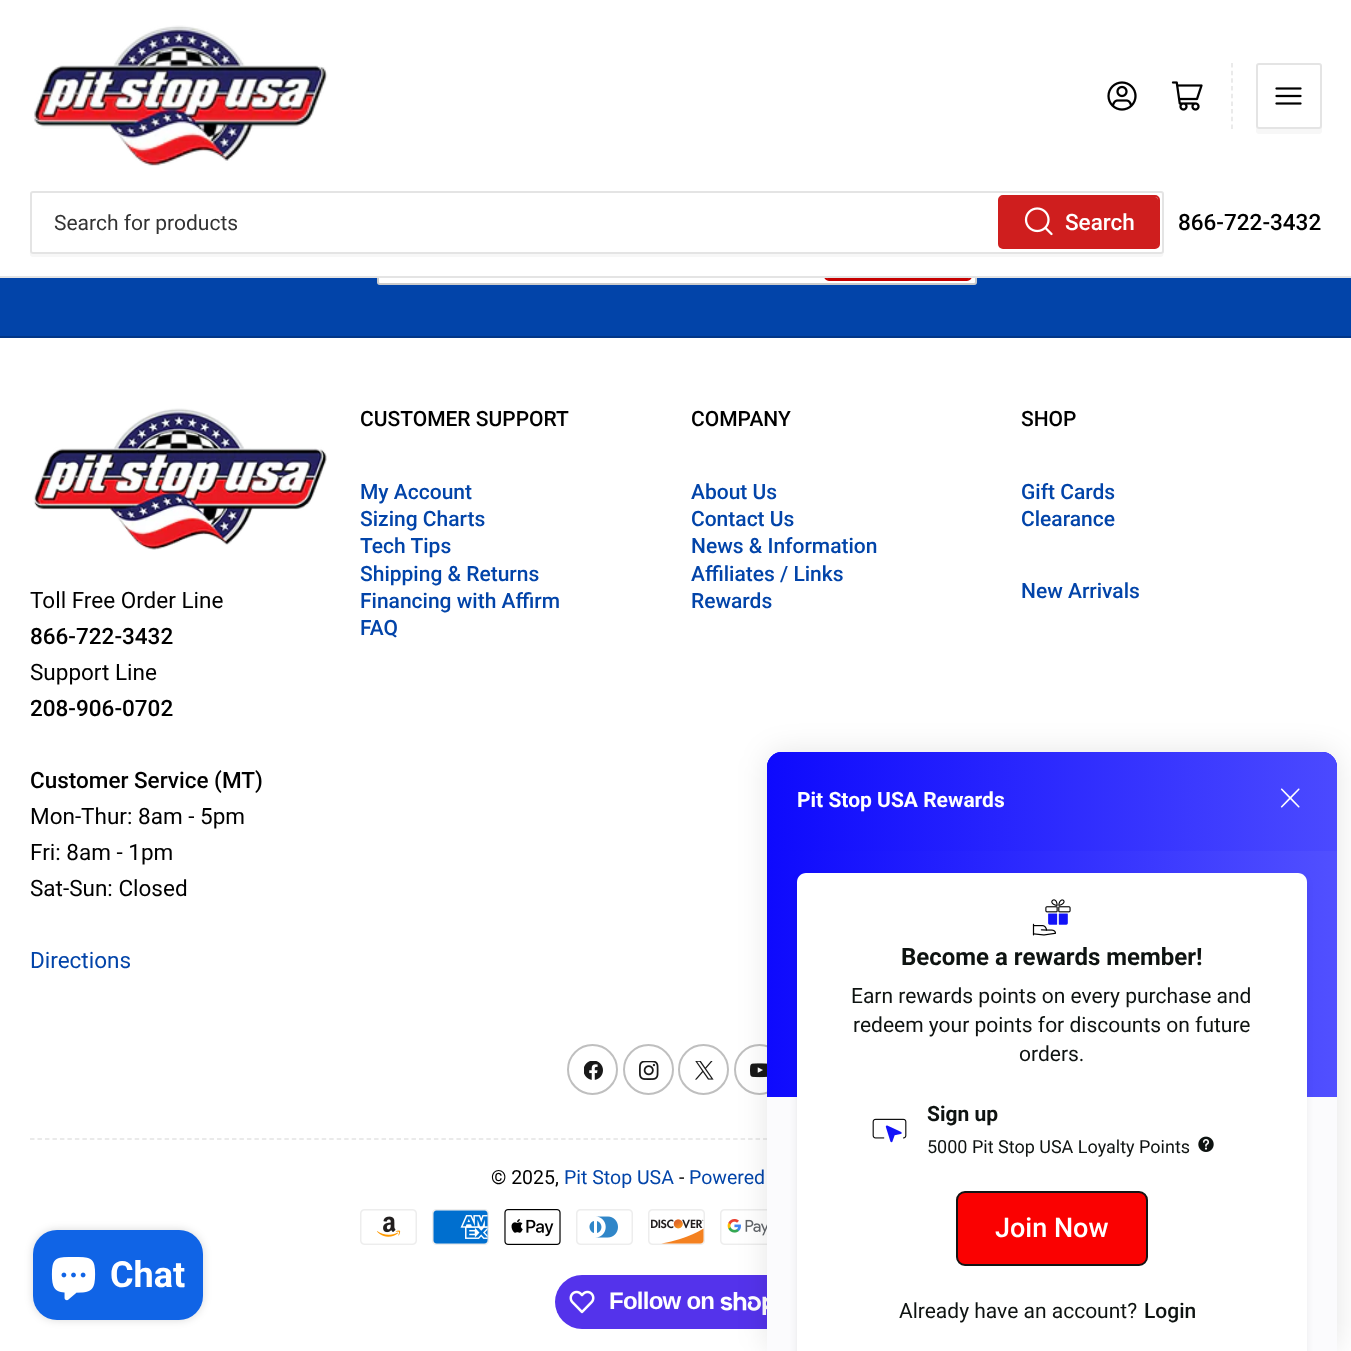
async function draw(canvas) {
  canvas.width = 1351
  canvas.height = 1351
  const ctx = canvas.getContext('2d')
  ctx.miterLimit = 4
  ctx.fontKerning = 'normal'
  async function loadImage(src) {
    const img = new Image()
    img.src = src
    await img.decode()
    return img
  }
  let gradient

  ctx.fillStyle = '#fff'
  ctx.fillRect(0, 0, 1351, 1351)
  ctx.fillStyle = '#0244a9'
  ctx.fillRect(0, 278, 1351, 58)
  ctx.fillStyle = '#fff'
  ctx.beginPath()
  ctx.roundRect(377, 222, 600, 63, 3)
  ctx.fill()
  ctx.beginPath()
  ctx.roundRect(378, 223, 598, 61, 2)
  ctx.strokeStyle = '#00000033'
  ctx.lineWidth = 2
  ctx.stroke()
  ctx.beginPath()
  ctx.roundRect(825, 228, 146, 52, 4)
  ctx.strokeStyle = '#c60000'
  ctx.stroke()
  ctx.fillStyle = '#c60000'
  ctx.beginPath()
  ctx.roundRect(825, 228, 146, 51, 3)
  ctx.fill()
  ctx.fillStyle = '#fff'
  ctx.fillRect(377, 222, 600, 54)
  ctx.fillStyle = '#e4e4e4'
  ctx.fillRect(0, 276, 1351, 2)
  ctx.drawImage(await loadImage('image0.png'), 33, 25, 295, 141)
  ctx.drawImage(await loadImage('image1.png'), 1107, 81, 30, 30)
  ctx.drawImage(await loadImage('image2.png'), 1171, 81, 32, 30)
  ctx.beginPath()
  ctx.moveTo(1232, 63)
  ctx.lineTo(1232, 129)
  ctx.strokeStyle = '#e4e4e4'
  ctx.lineWidth = 1.5
  ctx.setLineDash([4.5, 3.18])
  ctx.stroke()
  ctx.fillStyle = '#f7f7f7'
  ctx.beginPath()
  ctx.moveTo(1256, 128)
  ctx.lineTo(1256, 131)
  ctx.bezierCurveTo(1256, 133, 1257, 134, 1259, 134)
  ctx.lineTo(1319, 134)
  ctx.bezierCurveTo(1321, 134, 1322, 133, 1322, 131)
  ctx.lineTo(1322, 71)
  ctx.lineTo(1322, 69)
  ctx.lineTo(1322, 126)
  ctx.bezierCurveTo(1322, 128, 1320, 129, 1318, 129)
  ctx.lineTo(1258, 129)
  ctx.bezierCurveTo(1257, 129, 1257, 128, 1256, 128)
  ctx.closePath()
  ctx.fill()
  ctx.beginPath()
  ctx.roundRect(1257, 64, 64, 64, 2)
  ctx.lineWidth = 2
  ctx.setLineDash([])
  ctx.stroke()
  ctx.drawImage(await loadImage('image3.png'), 1275, 87, 27, 18)
  ctx.beginPath()
  ctx.moveTo(30, 250)
  ctx.bezierCurveTo(30, 253, 29, 257, 33, 257)
  ctx.lineTo(1161, 257)
  ctx.lineTo(1163, 256)
  ctx.lineTo(1164, 250)
  ctx.bezierCurveTo(1164, 252, 1163, 254, 1161, 254)
  ctx.lineTo(33, 254)
  ctx.bezierCurveTo(31, 254, 30, 252, 30, 250)
  ctx.closePath()
  ctx.fill()
  ctx.fillStyle = '#fff'
  ctx.beginPath()
  ctx.roundRect(31, 192, 1132, 61, 2)
  ctx.fill()
  ctx.stroke()
  ctx.save()
  ctx.beginPath()
  ctx.rect(54, 210, 1086, 24)
  ctx.clip()
  ctx.font = '21px Roboto'
  ctx.fillStyle = '#333'
  ctx.fillText('Search for products', 54, 230)
  ctx.restore()
  ctx.beginPath()
  ctx.roundRect(999, 196, 160, 52, 4)
  ctx.strokeStyle = '#cf1e1e'
  ctx.stroke()
  ctx.fillStyle = '#cf1e1e'
  ctx.beginPath()
  ctx.roundRect(999, 197, 159, 51, 3)
  ctx.fill()
  ctx.drawImage(await loadImage('image4.png'), 1024, 207, 29, 29)
  ctx.font = '500 22.5px Roboto'
  ctx.fillStyle = '#fff'
  ctx.fillText('Search', 1065, 230)
  ctx.fillStyle = '#000'
  ctx.fillText('866-722-3432', 1178, 230)
  ctx.fillStyle = '#023687'
  ctx.fillRect(0, 336, 1351, 2)
  ctx.font = '500 21px Roboto'
  ctx.fillStyle = '#000'
  ctx.fillText('CUSTOMER SUPPORT', 360, 426)
  ctx.fillStyle = '#0244a9'
  ctx.fillText('My Account', 360, 499)
  ctx.fillText('Sizing Charts', 360, 526)
  ctx.fillText('Tech Tips', 360, 553)
  ctx.fillText('Shipping & Returns', 360, 581)
  ctx.fillText('Financing with Affirm', 360, 608)
  ctx.fillText('FAQ', 360, 635)
  ctx.fillStyle = '#000'
  ctx.fillText('COMPANY', 691, 426)
  ctx.fillStyle = '#0244a9'
  ctx.fillText('About Us', 691, 499)
  ctx.fillText('Contact Us', 691, 526)
  ctx.fillText('News & Information', 691, 553)
  ctx.fillText('Affiliates / Links', 691, 581)
  ctx.fillText('Rewards', 691, 608)
  ctx.fillStyle = '#000'
  ctx.fillText('SHOP', 1021, 426)
  ctx.fillStyle = '#0244a9'
  ctx.fillText('Gift Cards', 1021, 499)
  ctx.fillText('Clearance', 1021, 526)
  ctx.fillText('New Arrivals', 1021, 598)
  ctx.drawImage(await loadImage('image5.png'), 33, 408, 294, 142)
  ctx.font = '22.5px Roboto'
  ctx.fillStyle = '#000'
  ctx.fillText('Toll Free Order Line', 30, 608)
  ctx.font = '500 22.5px Roboto'
  ctx.fillText('866-722-3432', 30, 644)
  ctx.font = '22.5px Roboto'
  ctx.fillText('Support Line', 30, 680)
  ctx.font = '500 22.5px Roboto'
  ctx.fillText('208-906-0702', 30, 716)
  ctx.fillText('Customer Service (MT)', 30, 788)
  ctx.font = '22.5px Roboto'
  ctx.fillText('Mon-Thur: 8am - 5pm', 30, 824)
  ctx.fillText('Fri: 8am - 1pm', 30, 860)
  ctx.fillText('Sat-Sun: Closed', 30, 896)
  ctx.fillStyle = '#0244a9'
  ctx.fillText('Directions', 30, 968)
  ctx.beginPath()
  ctx.arc(592.5, 1069.5, 24.5, 0, 2 * Math.PI)
  ctx.strokeStyle = '#bfbfbf'
  ctx.stroke()
  ctx.drawImage(await loadImage('image6.png'), 584, 1061, 19, 19)
  ctx.beginPath()
  ctx.arc(648.5, 1069.5, 24.5, 0, 2 * Math.PI)
  ctx.stroke()
  ctx.drawImage(await loadImage('image7.png'), 639, 1061, 20, 19)
  ctx.beginPath()
  ctx.arc(703.5, 1069.5, 24.5, 0, 2 * Math.PI)
  ctx.stroke()
  ctx.drawImage(await loadImage('image8.png'), 695, 1061, 19, 19)
  ctx.beginPath()
  ctx.arc(759.5, 1069.5, 24.5, 0, 2 * Math.PI)
  ctx.stroke()
  ctx.drawImage(await loadImage('image9.png'), 750, 1063, 17, 15)
  ctx.beginPath()
  ctx.moveTo(30, 1139)
  ctx.lineTo(1321.5, 1139)
  ctx.strokeStyle = '#e4e4e4'
  ctx.lineWidth = 1.5
  ctx.setLineDash([4.5, 2.98])
  ctx.stroke()
  ctx.font = '19.5px Roboto'
  ctx.fillStyle = '#000'
  ctx.fillText('© 2025,', 491, 1184)
  ctx.fillStyle = '#0244a9'
  ctx.fillText('Pit Stop USA', 564, 1184)
  ctx.fillStyle = '#000'
  ctx.fillText('-', 679, 1184)
  ctx.fillStyle = '#0244a9'
  ctx.fillText('Powered', 689, 1184)
  ctx.drawImage(await loadImage('image10.png'), 360, 1209, 57, 36)
  ctx.drawImage(await loadImage('image11.png'), 432, 1209, 57, 36)
  ctx.drawImage(await loadImage('image12.png'), 504, 1209, 57, 36)
  ctx.drawImage(await loadImage('image13.png'), 576, 1209, 57, 36)
  ctx.drawImage(await loadImage('image14.png'), 648, 1209, 57, 36)
  ctx.drawImage(await loadImage('image15.png'), 720, 1209, 47, 36)
  ctx.fillStyle = '#5433eb'
  ctx.beginPath()
  ctx.roundRect(555, 1275, 242, 54, 27)
  ctx.fill()
  ctx.drawImage(await loadImage('image16.png'), 569, 1290, 26, 24)
  ctx.letterSpacing = '-0.75px'
  ctx.font = 'bold 24px Liberation Sans'
  ctx.fillStyle = '#fff'
  ctx.fillText('Follow on', 609, 1309)
  ctx.drawImage(await loadImage('image17.png'), 720, 1292, 47, 23)
  ctx.fillStyle = '#00000026'
  ctx.filter = 'blur(4px)'
  ctx.beginPath()
  ctx.roundRect(33, 1230, 170, 90, 24)
  ctx.fill()
  ctx.filter = 'none'
  ctx.fillStyle = '#1064e6'
  ctx.beginPath()
  ctx.roundRect(33, 1230, 170, 90, 24)
  ctx.fill()
  ctx.drawImage(await loadImage('image18.png'), 51, 1257, 45, 44)
  ctx.letterSpacing = '0px'
  ctx.font = 'bold 36px Roboto'
  ctx.fillStyle = '#fff'
  ctx.fillText('Chat', 110, 1287)
  ctx.fillStyle = '#0000001a'
  ctx.filter = 'blur(15px)'
  ctx.beginPath()
  ctx.roundRect(767, 752, 570, 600, 15)
  ctx.fill()
  ctx.filter = 'none'
  ctx.fillStyle = '#fbfbfd'
  ctx.beginPath()
  ctx.moveTo(782, 752)
  ctx.lineTo(1322, 752)
  ctx.bezierCurveTo(1330.5, 752, 1337, 758.5, 1337, 767)
  ctx.lineTo(1337, 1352)
  ctx.lineTo(767, 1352)
  ctx.lineTo(767, 767)
  ctx.bezierCurveTo(767, 758.5, 773.5, 752, 782, 752)
  ctx.closePath()
  ctx.fill()
  gradient = ctx.createLinearGradient(767, 909, 1337, 909)
  gradient.addColorStop(0, '#0e0afd')
  gradient.addColorStop(1, '#5150ff')
  ctx.fillStyle = gradient
  ctx.beginPath()
  ctx.roundRect(767, 752, 570, 345, [15, 15, 0, 0])
  ctx.fill()
  ctx.fillStyle = '#0e0afde6'
  ctx.beginPath()
  ctx.roundRect(767, 752, 570, 99, [15, 15, 0, 0])
  ctx.fill()
  gradient = ctx.createLinearGradient(767, 801, 1337, 801)
  gradient.addColorStop(0, '#0e0afde6')
  gradient.addColorStop(1, '#5150ffe6')
  ctx.fillStyle = gradient
  ctx.beginPath()
  ctx.roundRect(767, 752, 570, 99, [15, 15, 0, 0])
  ctx.fill()
  ctx.font = 'bold 21px Roboto'
  ctx.fillStyle = '#fff'
  ctx.fillText('Pit Stop USA Rewards', 797, 807)
  ctx.drawImage(await loadImage('image19.png'), 1280, 788, 20, 20)
  ctx.fillStyle = '#0000001a'
  ctx.filter = 'blur(4.5px)'
  ctx.beginPath()
  ctx.roundRect(798, 878, 507, 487, 8)
  ctx.fill()
  ctx.filter = 'none'
  ctx.fillStyle = '#fff'
  ctx.beginPath()
  ctx.moveTo(806, 873)
  ctx.lineTo(1298, 873)
  ctx.bezierCurveTo(1303, 873, 1307, 877, 1307, 882)
  ctx.lineTo(1307, 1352)
  ctx.lineTo(797, 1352)
  ctx.lineTo(797, 882)
  ctx.bezierCurveTo(797, 877, 801, 873, 806, 873)
  ctx.closePath()
  ctx.fill()
  ctx.drawImage(await loadImage('image20.png'), 1032, 899, 39, 37)
  ctx.font = 'bold 24px Roboto'
  ctx.fillStyle = '#0e1311'
  ctx.fillText('Become a rewards member!', 901, 965)
  ctx.font = '21px Roboto'
  ctx.fillText('Earn rewards points on every purchase and', 851, 1003)
  ctx.fillText('redeem your points for discounts on future', 853, 1032)
  ctx.fillText('orders.', 1019, 1061)
  ctx.drawImage(await loadImage('image21.png'), 872, 1118, 35, 25)
  ctx.font = 'bold 21px Roboto'
  ctx.fillText('Sign up', 927, 1121)
  ctx.font = '18px Roboto'
  ctx.fillText('5000 Pit Stop USA Loyalty Points', 927, 1153)
  ctx.drawImage(await loadImage('image22.png'), 1198, 1136, 16, 16)
  ctx.fillStyle = '#fa0101'
  ctx.beginPath()
  ctx.roundRect(957, 1192, 190, 73, 8)
  ctx.fill()
  ctx.strokeStyle = '#141414'
  ctx.lineWidth = 2
  ctx.setLineDash([])
  ctx.stroke()
  ctx.font = '500 27px Roboto'
  ctx.fillStyle = '#fff'
  ctx.fillText('Join Now', 995, 1237)
  ctx.font = '21px Roboto'
  ctx.fillStyle = '#0e1311'
  ctx.fillText('Already have an account?', 899, 1318)
  ctx.font = '500 21px Roboto'
  ctx.fillText('Login', 1144, 1318)
}

draw(document.querySelector('canvas'))
